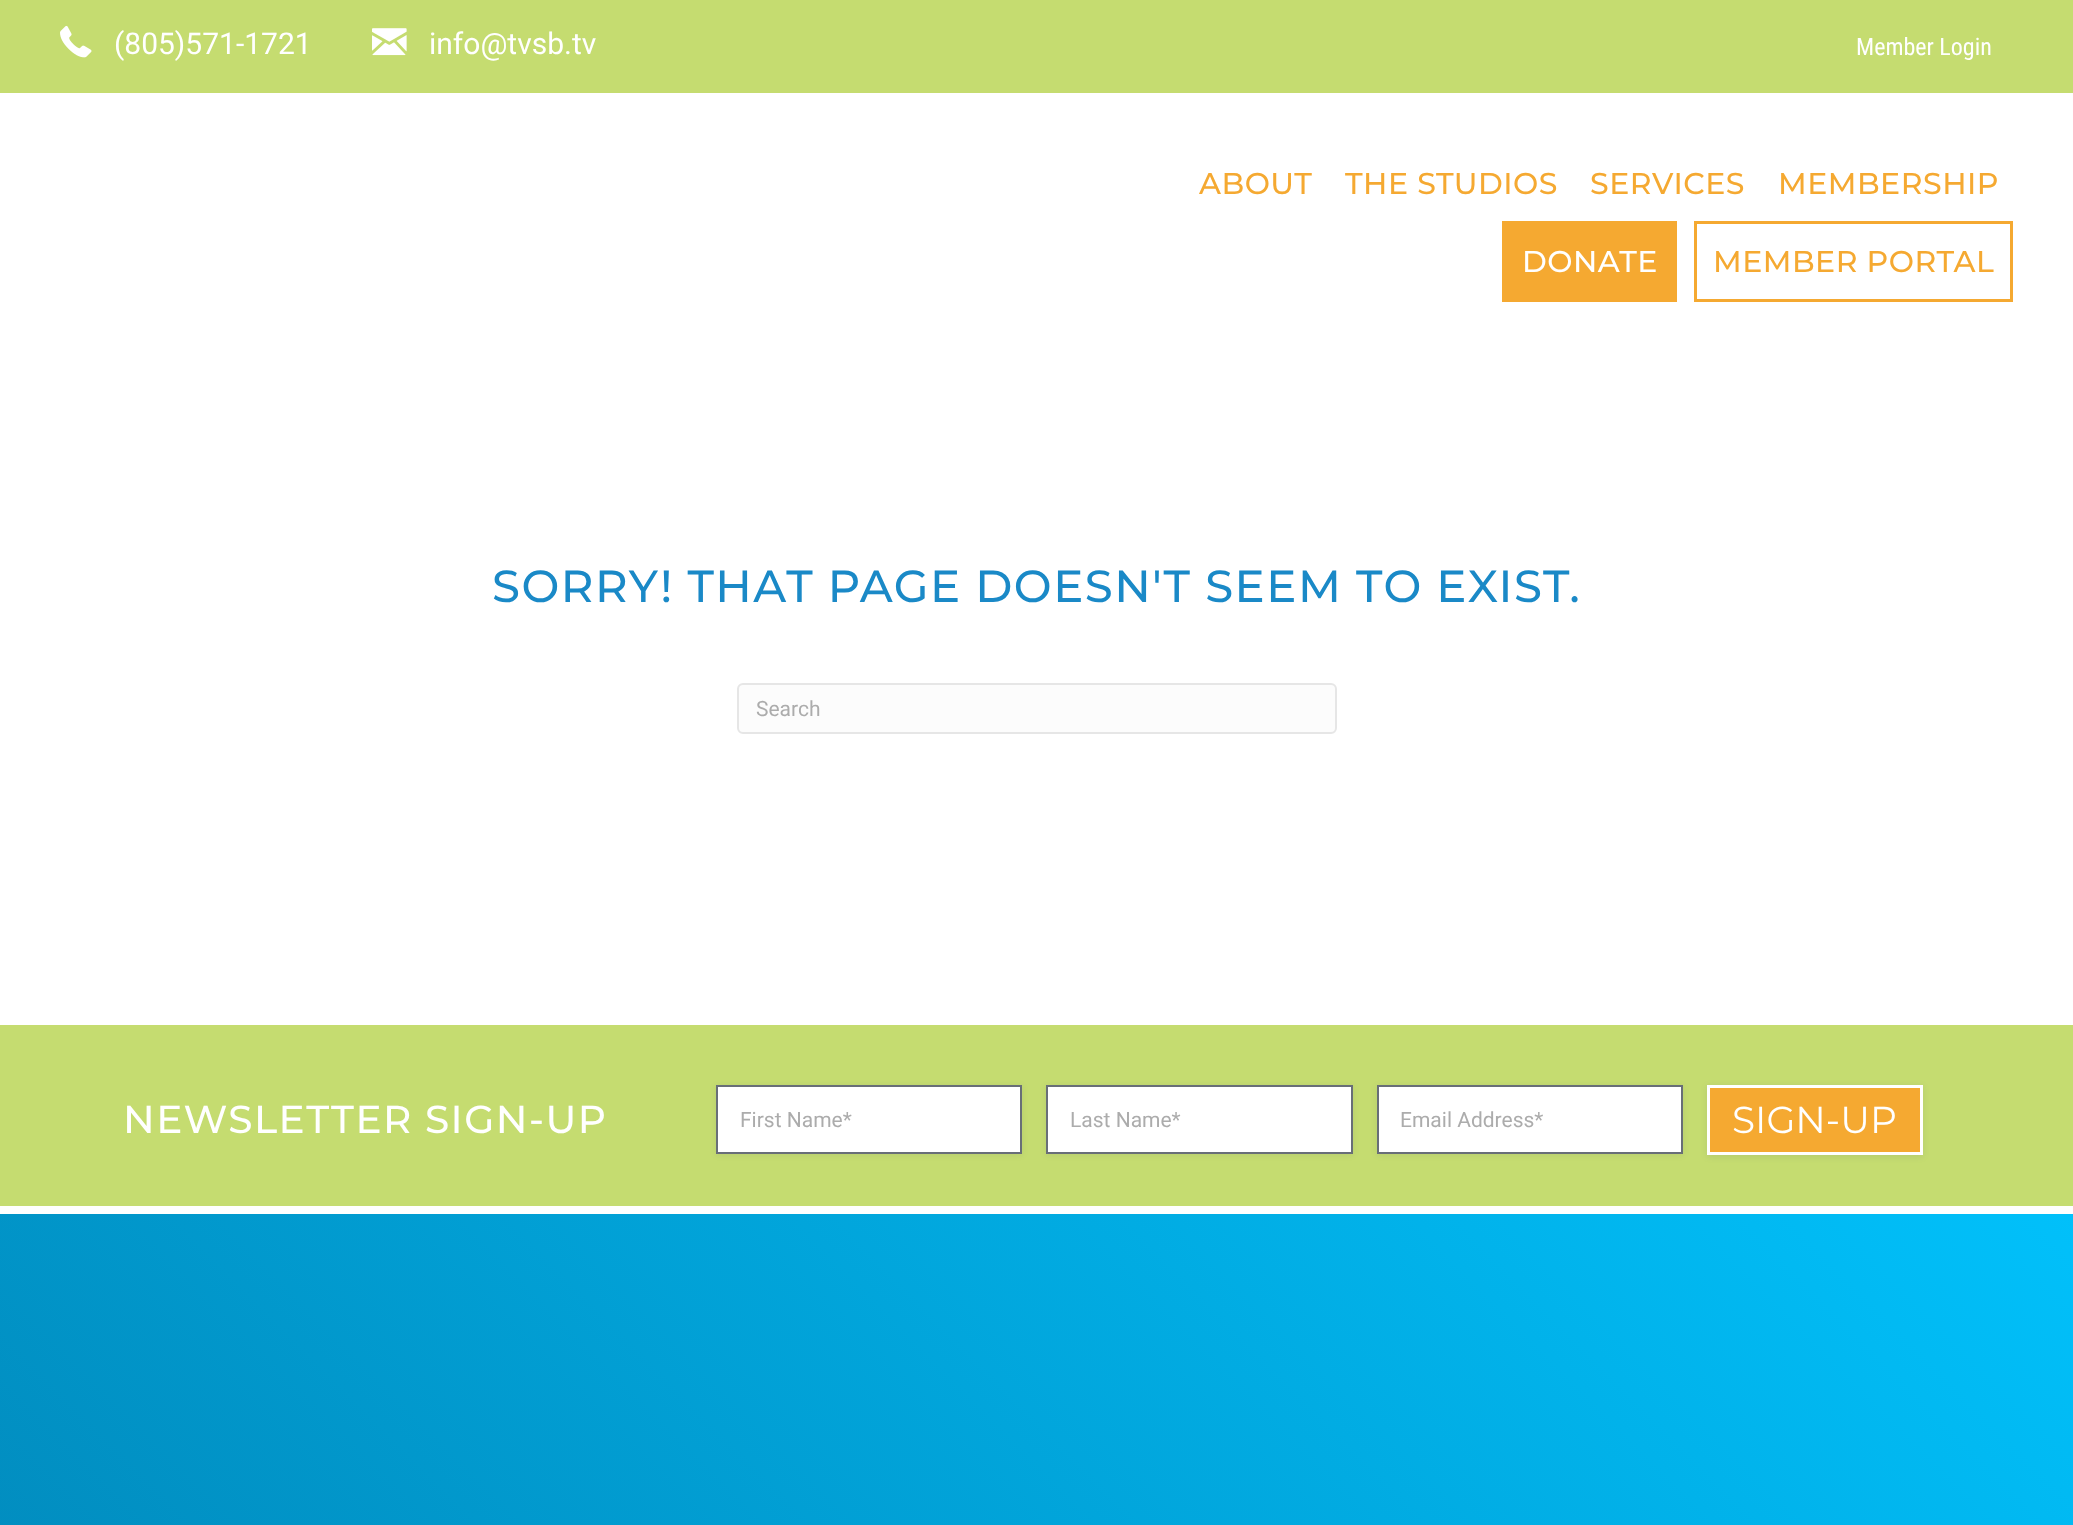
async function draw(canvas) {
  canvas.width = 2073
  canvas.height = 1525
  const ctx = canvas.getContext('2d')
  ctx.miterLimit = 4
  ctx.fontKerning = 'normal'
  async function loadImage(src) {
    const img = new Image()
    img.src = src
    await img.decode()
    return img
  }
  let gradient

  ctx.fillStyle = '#fff'
  ctx.fillRect(0, 0, 2073, 1525)
  ctx.fillStyle = '#c5dc70'
  ctx.fillRect(0, 0, 2073, 93)
  ctx.drawImage(await loadImage('image0.png'), 60, 25, 32, 33)
  ctx.font = '30px Roboto'
  ctx.fillStyle = '#fff'
  ctx.fillText('(805)571-1721', 114, 54)
  ctx.drawImage(await loadImage('image1.png'), 372, 28, 35, 28)
  ctx.fillText('info@tvsb.tv', 429, 54)
  ctx.font = '24px Roboto Condensed'
  ctx.fillText('Member Login', 1856, 55)
  ctx.letterSpacing = '0.5px'
  ctx.font = '500 30px Montserrat'
  ctx.fillStyle = '#f5a931'
  ctx.fillText('ABOUT', 1199, 194)
  ctx.fillText('THE STUDIOS', 1345, 194)
  ctx.fillText('SERVICES', 1590, 194)
  ctx.fillText('MEMBERSHIP', 1778, 194)
  ctx.fillRect(1502, 221, 175, 81)
  ctx.fillStyle = '#fff'
  ctx.fillText('DONATE', 1522, 272)
  ctx.strokeStyle = '#f5a931'
  ctx.lineWidth = 3
  ctx.strokeRect(1695.5, 222.5, 316, 78)
  ctx.fillStyle = '#f5a931'
  ctx.fillText('MEMBER PORTAL', 1713, 272)
  ctx.letterSpacing = '1.5px'
  ctx.font = '500 45px Montserrat'
  ctx.fillStyle = '#1a89c7'
  ctx.fillText('SORRY! THAT PAGE DOESN\'T SEEM TO EXIST.', 492, 602)
  ctx.fillStyle = '#fcfcfc'
  ctx.beginPath()
  ctx.roundRect(738, 684, 598, 49, 5)
  ctx.fill()
  ctx.strokeStyle = '#e6e6e6'
  ctx.lineWidth = 2
  ctx.stroke()
  ctx.letterSpacing = '0px'
  ctx.font = '21px Roboto'
  ctx.fillStyle = '#acacac'
  ctx.fillText('Search', 756, 716)
  ctx.fillStyle = '#c5dc70'
  ctx.fillRect(0, 1025, 2073, 181)
  ctx.letterSpacing = '1.5px'
  ctx.font = '500 39px Montserrat'
  ctx.fillStyle = '#fff'
  ctx.fillText('NEWSLETTER SIGN-UP', 123, 1133)
  ctx.fillStyle = '#12196114'
  ctx.filter = 'blur(3px)'
  ctx.beginPath()
  ctx.rect(716, 1086, 306, 69)
  ctx.fill()
  ctx.filter = 'none'
  ctx.fillStyle = '#fff'
  ctx.beginPath()
  ctx.rect(717, 1086, 304, 67)
  ctx.fill()
  ctx.strokeStyle = '#686e77'
  ctx.stroke()
  ctx.letterSpacing = '0px'
  ctx.font = '21px Roboto'
  ctx.fillStyle = '#acacac'
  ctx.fillText('First Name*', 740, 1127)
  ctx.fillStyle = '#12196114'
  ctx.filter = 'blur(3px)'
  ctx.beginPath()
  ctx.rect(1046, 1086, 307, 69)
  ctx.fill()
  ctx.filter = 'none'
  ctx.fillStyle = '#fff'
  ctx.beginPath()
  ctx.rect(1047, 1086, 305, 67)
  ctx.fill()
  ctx.stroke()
  ctx.fillStyle = '#acacac'
  ctx.fillText('Last Name*', 1070, 1127)
  ctx.fillStyle = '#12196114'
  ctx.filter = 'blur(3px)'
  ctx.beginPath()
  ctx.rect(1377, 1086, 306, 69)
  ctx.fill()
  ctx.filter = 'none'
  ctx.fillStyle = '#fff'
  ctx.beginPath()
  ctx.rect(1378, 1086, 304, 67)
  ctx.fill()
  ctx.stroke()
  ctx.fillStyle = '#acacac'
  ctx.fillText('Email Address*', 1400, 1127)
  ctx.fillStyle = '#12196114'
  ctx.filter = 'blur(3px)'
  ctx.beginPath()
  ctx.rect(1707, 1086, 216, 71)
  ctx.fill()
  ctx.filter = 'none'
  ctx.fillStyle = '#f5a931'
  ctx.beginPath()
  ctx.rect(1708.5, 1086.5, 213, 67)
  ctx.fill()
  ctx.strokeStyle = '#fff'
  ctx.lineWidth = 3
  ctx.stroke()
  ctx.font = '37.5px Montserrat'
  ctx.fillStyle = '#fff'
  ctx.fillText('SIGN-UP', 1732, 1133)
  gradient = ctx.createLinearGradient(-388, 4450, 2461, 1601)
  gradient.addColorStop(0, '#024870')
  gradient.addColorStop(1, '#01c0fa')
  ctx.fillStyle = gradient
  ctx.fillRect(0, 1214, 2073, 311)
}

draw(document.querySelector('canvas'))
